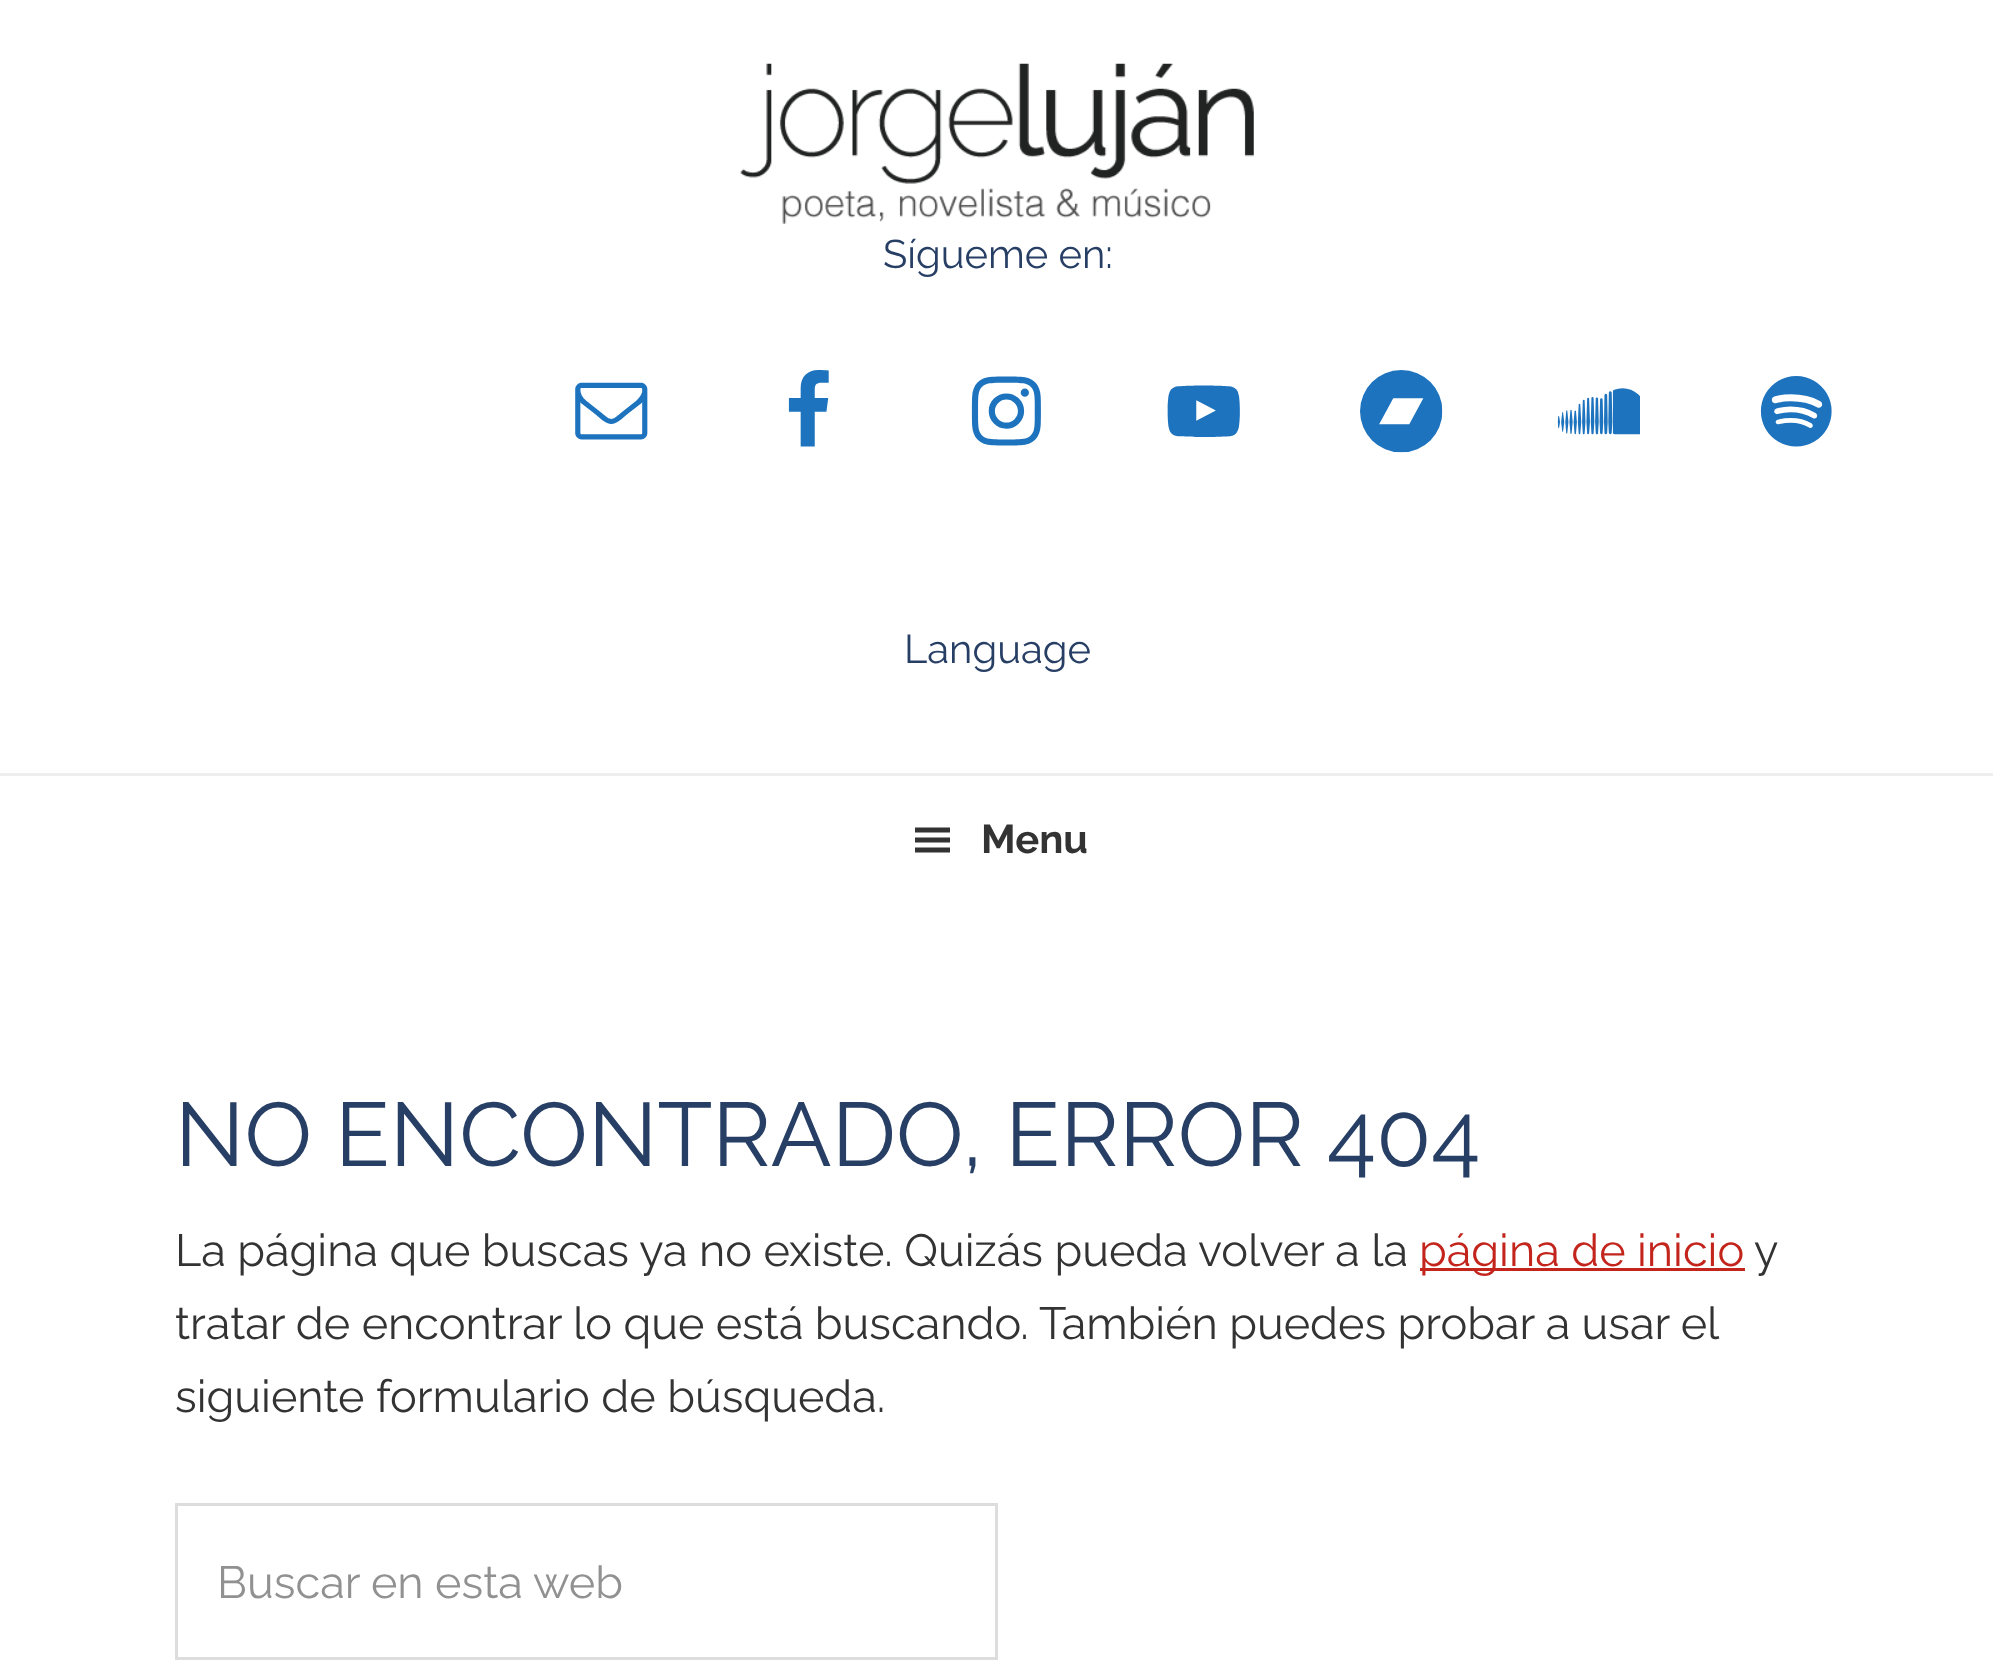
async function draw(canvas) {
  canvas.width = 1993
  canvas.height = 1664
  const ctx = canvas.getContext('2d')
  ctx.miterLimit = 4
  ctx.fontKerning = 'normal'
  async function loadImage(src) {
    const img = new Image()
    img.src = src
    await img.decode()
    return img
  }

  ctx.fillStyle = '#fff'
  ctx.fillRect(0, 0, 1993, 1664)
  ctx.drawImage(await loadImage('image0.png'), 740, 63, 514, 161)
  ctx.font = '40px Raleway'
  ctx.fillStyle = '#273f65'
  ctx.fillText('Sígueme en:', 883, 268)
  ctx.drawImage(await loadImage('image1.png'), 575, 382, 73, 58)
  ctx.drawImage(await loadImage('image2.png'), 788, 370, 41, 77)
  ctx.drawImage(await loadImage('image3.png'), 971, 376, 70, 70)
  ctx.drawImage(await loadImage('image4.png'), 1167, 385, 73, 52)
  ctx.drawImage(await loadImage('image5.png'), 1360, 370, 83, 83)
  ctx.drawImage(await loadImage('image6.png'), 1557, 388, 83, 47)
  ctx.drawImage(await loadImage('image7.png'), 1760, 376, 72, 71)
  ctx.fillText('Language', 904, 663)
  ctx.fillStyle = '#eee'
  ctx.fillRect(0, 773, 1993, 3)
  ctx.fillStyle = '#333'
  ctx.beginPath()
  ctx.moveTo(915, 852.5)
  ctx.lineTo(950, 852.5)
  ctx.lineTo(950, 847.5)
  ctx.lineTo(915, 847.5)
  ctx.closePath()
  ctx.moveTo(915, 827.5)
  ctx.lineTo(915, 832.5)
  ctx.lineTo(950, 832.5)
  ctx.lineTo(950, 827.5)
  ctx.closePath()
  ctx.moveTo(915, 842.5)
  ctx.lineTo(950, 842.5)
  ctx.lineTo(950, 837.5)
  ctx.lineTo(915, 837.5)
  ctx.closePath()
  ctx.fill()
  ctx.font = 'bold 40px Raleway'
  ctx.fillText('Menu', 981, 853)
  ctx.font = '90px Raleway'
  ctx.fillStyle = '#273f65'
  ctx.fillText('NO ENCONTRADO, ERROR 404', 175, 1166)
  ctx.font = '45px Raleway'
  ctx.fillStyle = '#333'
  ctx.fillText('La página que buscas ya no existe. Quizás pueda volver a la', 175, 1266)
  ctx.fillStyle = '#c3251d'
  ctx.fillRect(1420, 1268, 325, 3)
  ctx.fillText('página de inicio', 1419, 1266)
  ctx.fillStyle = '#333'
  ctx.fillText('y', 1754, 1266)
  ctx.wordSpacing = '-0.1px'
  ctx.fillText('tratar de encontrar lo que está buscando. También puedes probar a usar el', 175, 1339)
  ctx.wordSpacing = '0px'
  ctx.fillText('siguiente formulario de búsqueda.', 175, 1412)
  ctx.strokeStyle = '#ddd'
  ctx.lineWidth = 3
  ctx.strokeRect(176.5, 1504.5, 820, 154)
  ctx.fillStyle = '#919191'
  ctx.fillText('Buscar en esta web', 217, 1598)
}

draw(document.querySelector('canvas'))
